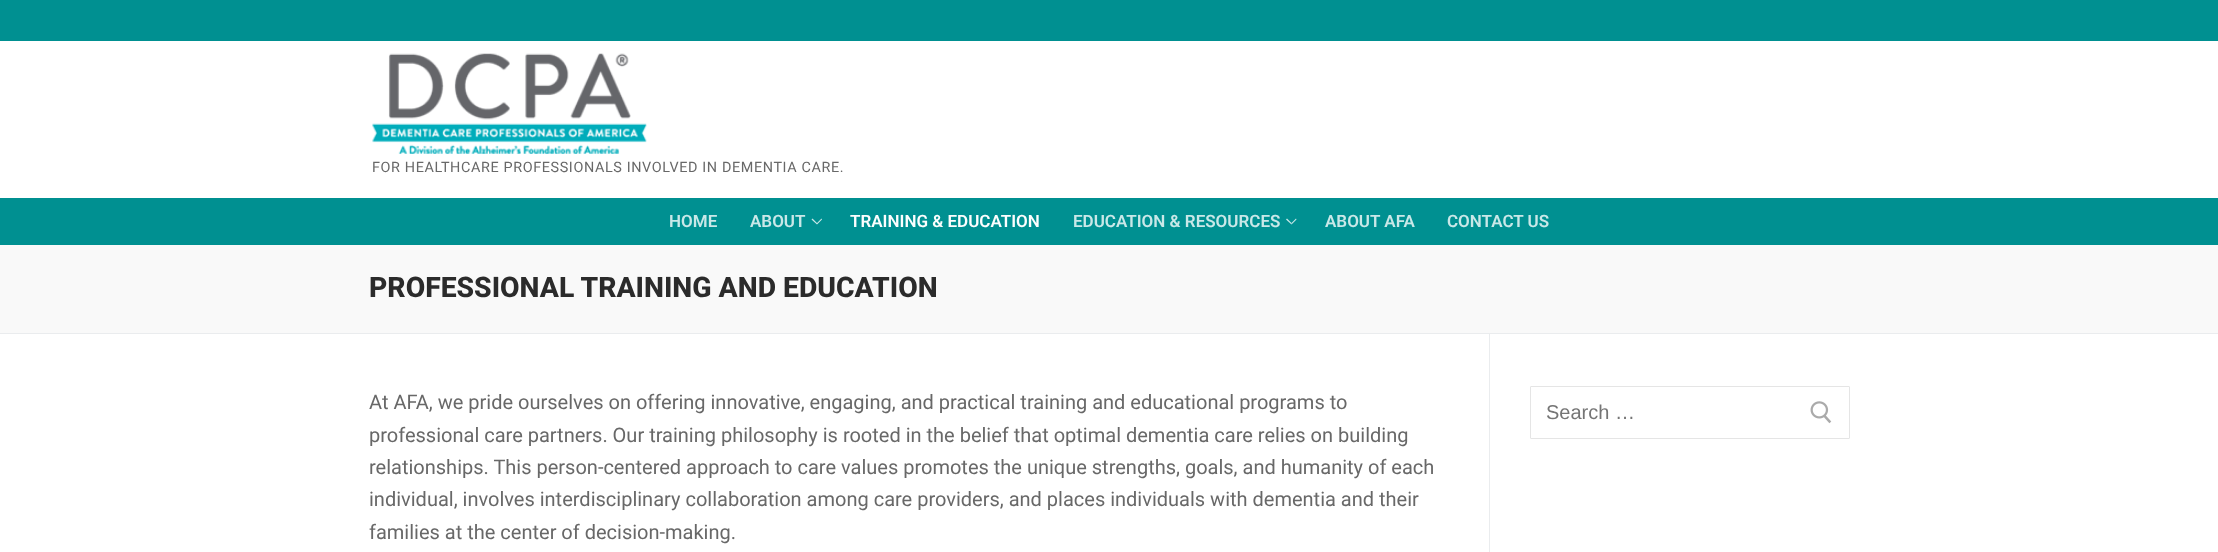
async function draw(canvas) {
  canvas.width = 2218
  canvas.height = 552
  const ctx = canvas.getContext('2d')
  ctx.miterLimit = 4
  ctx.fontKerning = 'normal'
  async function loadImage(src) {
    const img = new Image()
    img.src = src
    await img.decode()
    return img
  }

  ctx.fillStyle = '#fff'
  ctx.fillRect(0, 0, 2218, 552)
  ctx.fillStyle = '#009091'
  ctx.fillRect(0, 0, 2218, 41)
  ctx.drawImage(await loadImage('image0.png'), 372, 53, 275, 101)
  ctx.letterSpacing = '0.62px'
  ctx.font = '14.4px Roboto'
  ctx.fillStyle = '#686868'
  ctx.fillText('FOR HEALTHCARE PROFESSIONALS INVOLVED IN DEMENTIA CARE.', 372, 172)
  ctx.fillStyle = '#009091'
  ctx.fillRect(0, 198, 2218, 47)
  ctx.letterSpacing = '0px'
  ctx.font = '600 17px Roboto'
  ctx.fillStyle = '#c9e8e8'
  ctx.fillText('HOME', 669, 227)
  ctx.fillText('ABOUT', 750, 227)
  ctx.beginPath()
  ctx.moveTo(817, 224.5)
  ctx.lineTo(811.5, 219.5)
  ctx.lineTo(812.5, 218.5)
  ctx.lineTo(817, 223)
  ctx.closePath()
  ctx.moveTo(822, 219.5)
  ctx.lineTo(817, 224.5)
  ctx.lineTo(817, 223)
  ctx.lineTo(821.5, 218.5)
  ctx.closePath()
  ctx.fill()
  ctx.fillStyle = '#fcfefe'
  ctx.fillText('TRAINING & EDUCATION', 850, 227)
  ctx.fillStyle = '#c9e8e8'
  ctx.fillText('EDUCATION & RESOURCES', 1073, 227)
  ctx.beginPath()
  ctx.moveTo(1291.5, 224.5)
  ctx.lineTo(1286, 219.5)
  ctx.lineTo(1287, 218.5)
  ctx.lineTo(1291.5, 223)
  ctx.closePath()
  ctx.fill()
  ctx.fillStyle = '#ffffffc9'
  ctx.beginPath()
  ctx.moveTo(1296.5, 219.5)
  ctx.lineTo(1291.5, 224.5)
  ctx.lineTo(1291.5, 223)
  ctx.lineTo(1296, 218.5)
  ctx.closePath()
  ctx.fill()
  ctx.fillStyle = '#c9e8e8'
  ctx.fillText('ABOUT AFA', 1325, 227)
  ctx.fillText('CONTACT US', 1447, 227)
  ctx.fillStyle = '#f9f9f9'
  ctx.fillRect(0, 245, 2218, 88)
  ctx.fillStyle = '#eaecee'
  ctx.fillRect(0, 333, 2218, 1)
  ctx.font = '800 28.3px Roboto'
  ctx.fillStyle = '#2b2b2b'
  ctx.fillText('PROFESSIONAL TRAINING AND EDUCATION', 369, 297)
  ctx.fillStyle = '#eaecee'
  ctx.fillRect(1489, 334, 1, 218)
  ctx.font = '20px Roboto'
  ctx.fillStyle = '#686868'
  ctx.fillText('At AFA, we pride ourselves on offering innovative, engaging, and practical training and educational programs to', 369, 409)
  ctx.fillText('professional care partners. Our training philosophy is rooted in the belief that optimal dementia care relies on building', 369, 442)
  ctx.fillText('relationships. This person-centered approach to care values promotes the unique strengths, goals, and humanity of each', 369, 474)
  ctx.fillText('individual, involves interdisciplinary collaboration among care providers, and places individuals with dementia and their', 369, 506)
  ctx.fillText('families at the center of decision-making.', 369, 539)
  ctx.beginPath()
  ctx.roundRect(1530.5, 386.5, 319, 52, 0.5)
  ctx.strokeStyle = '#e5e5e5'
  ctx.stroke()
  ctx.font = '20px Liberation Sans'
  ctx.fillStyle = '#757575'
  ctx.fillText('Search …', 1546, 419)
  ctx.drawImage(await loadImage('image1.png'), 1810, 401, 22, 23)
}

draw(document.querySelector('canvas'))
